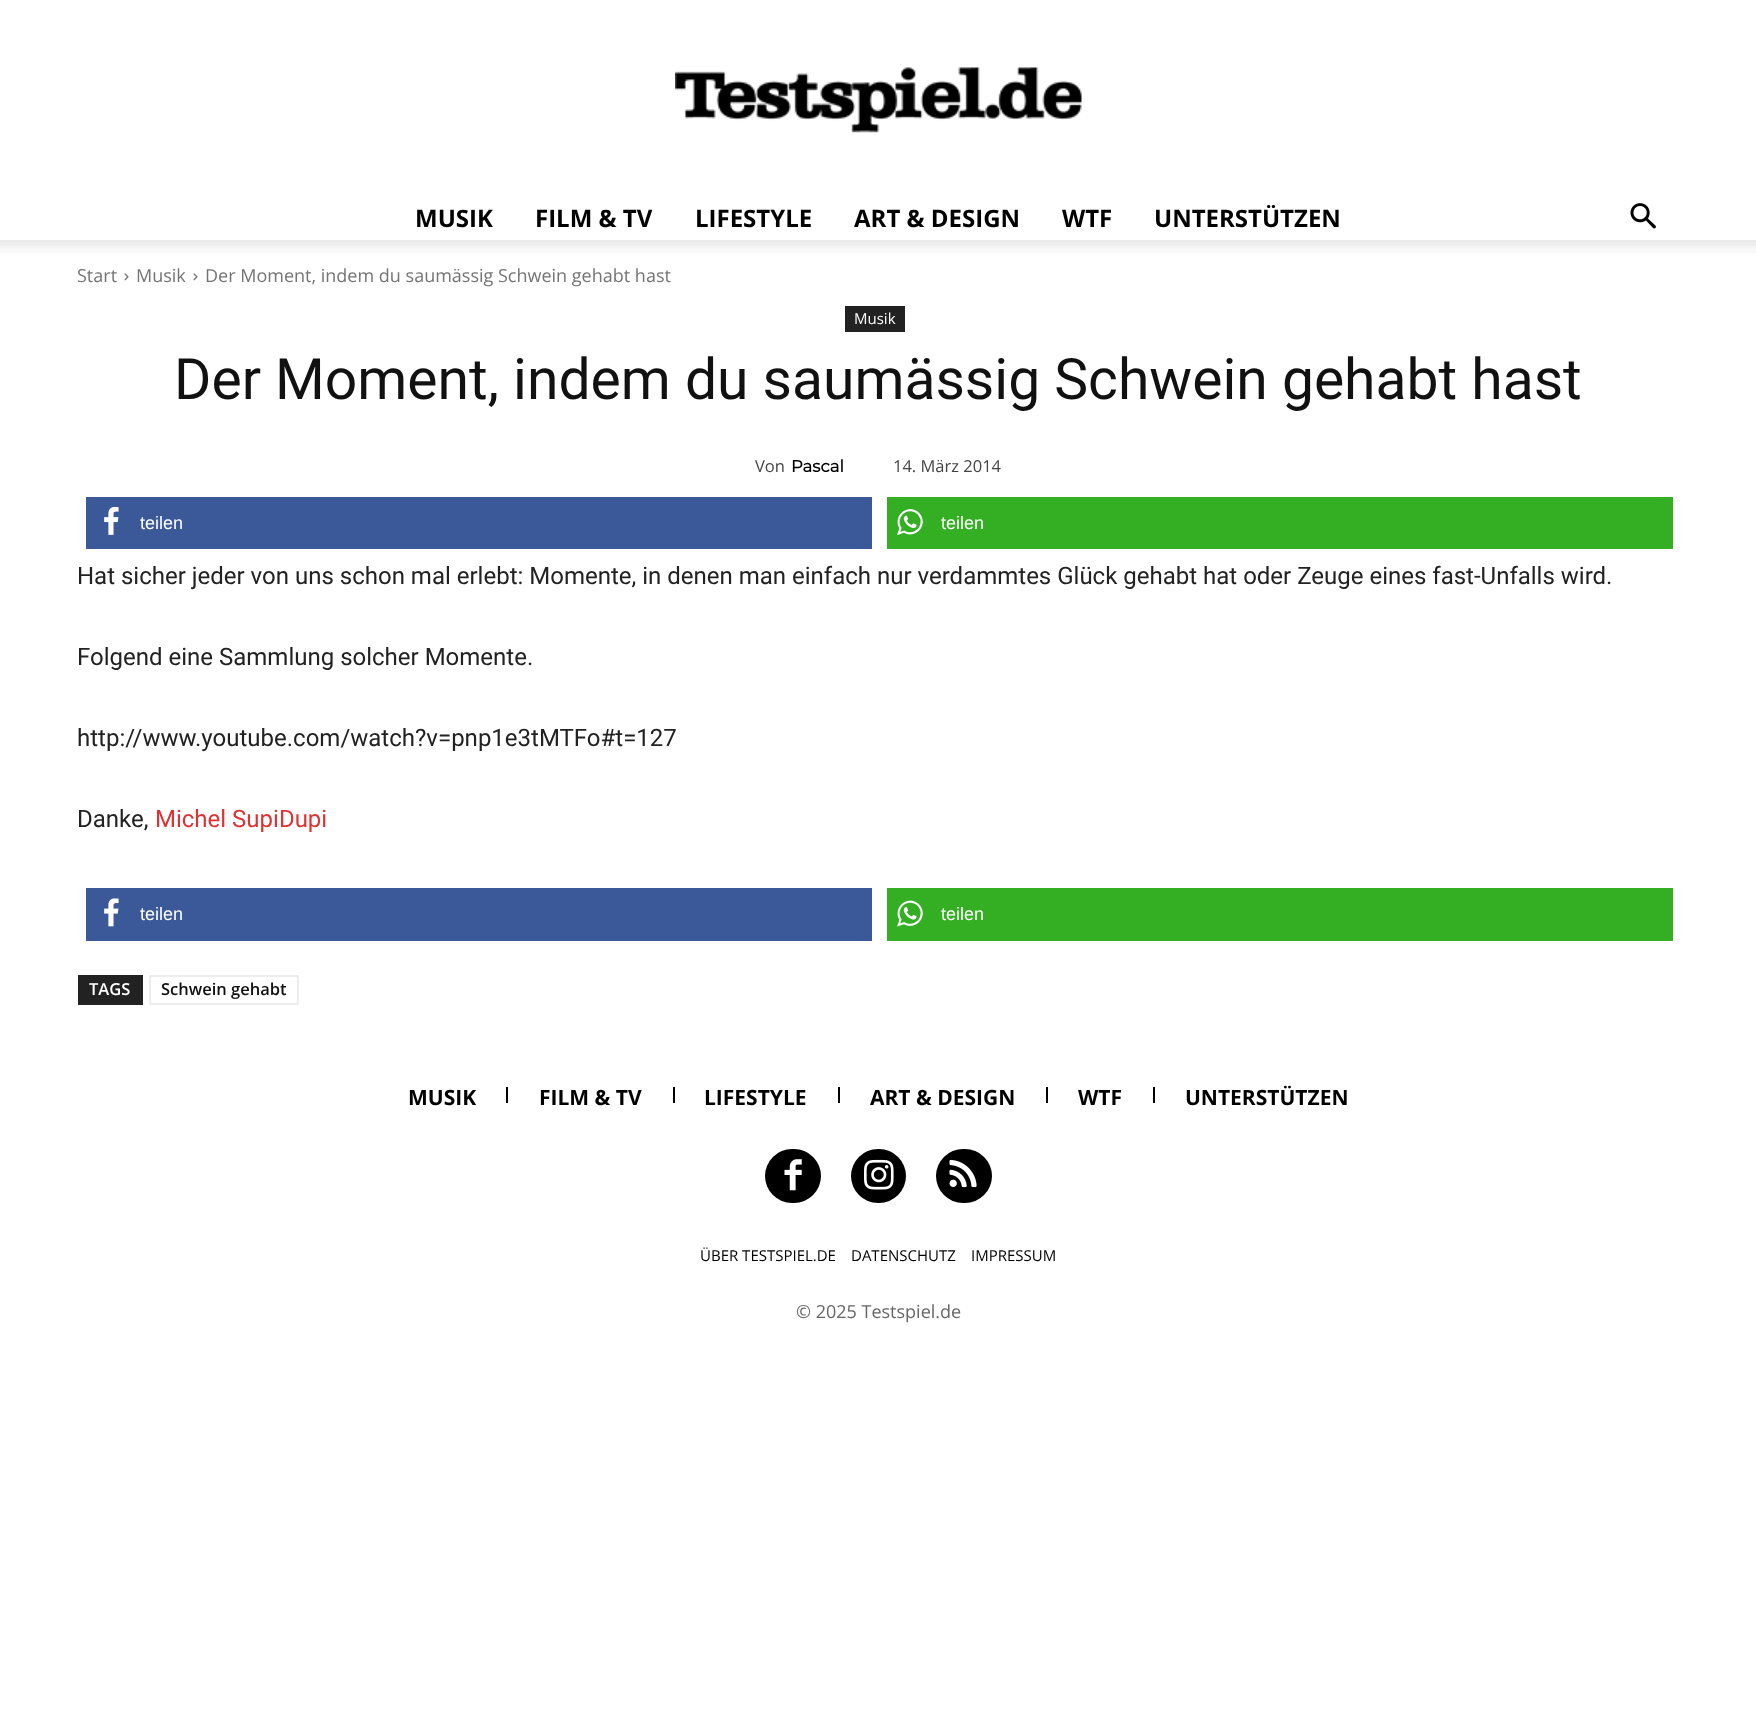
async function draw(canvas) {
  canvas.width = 1756
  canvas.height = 1722
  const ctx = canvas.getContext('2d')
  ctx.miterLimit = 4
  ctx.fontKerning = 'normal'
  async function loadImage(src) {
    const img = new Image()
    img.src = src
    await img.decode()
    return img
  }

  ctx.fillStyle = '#fff'
  ctx.fillRect(0, 0, 1756, 1722)
  ctx.drawImage(await loadImage('image0.png'), 675, 67, 407, 66)
  ctx.font = 'bold 24px Open Sans'
  ctx.fillStyle = '#000'
  ctx.fillText('MUSIK', 415, 227)
  ctx.fillText('FILM & TV', 535, 227)
  ctx.fillText('LIFESTYLE', 695, 227)
  ctx.fillText('ART & DESIGN', 854, 227)
  ctx.fillText('WTF', 1062, 227)
  ctx.fillText('UNTERSTÜTZEN', 1154, 227)
  ctx.drawImage(await loadImage('image1.png'), 1630, 203, 26, 26)
  ctx.drawImage(await loadImage('image2.png'), 0, 240, 1756, 13)
  ctx.font = '18px Open Sans'
  ctx.fillStyle = '#747474'
  ctx.fillText('Start', 77, 282)
  ctx.drawImage(await loadImage('image3.png'), 124, 273, 5, 8)
  ctx.fillText('Musik', 136, 282)
  ctx.drawImage(await loadImage('image3.png'), 193, 273, 5, 8)
  ctx.fillText('Der Moment, indem du saumässig Schwein gehabt hast', 205, 282)
  ctx.fillStyle = '#222'
  ctx.fillRect(845, 306, 60, 26)
  ctx.font = '15px Open Sans'
  ctx.fillStyle = '#fff'
  ctx.fillText('Musik', 854, 324)
  ctx.font = '57px Roboto'
  ctx.fillStyle = '#111'
  ctx.fillText('Der Moment, indem du saumässig Schwein gehabt hast', 174, 399)
  ctx.font = '16.5px Open Sans'
  ctx.fillStyle = '#444'
  ctx.fillText('Von', 755, 472)
  ctx.font = 'bold 16.5px Montserrat'
  ctx.fillStyle = '#000'
  ctx.fillText('Pascal', 791, 472)
  ctx.font = '16.5px Open Sans'
  ctx.fillStyle = '#444'
  ctx.fillText('14. März 2014', 893, 472)
  ctx.fillStyle = '#3b5998'
  ctx.fillRect(86, 497, 786, 52)
  ctx.drawImage(await loadImage('image4.png'), 104, 506, 15, 29)
  ctx.font = '18px Liberation Sans'
  ctx.fillStyle = '#fff'
  ctx.fillText('teilen', 140, 529)
  ctx.fillStyle = '#34af23'
  ctx.fillRect(887, 497, 786, 52)
  ctx.drawImage(await loadImage('image5.png'), 897, 509, 26, 26)
  ctx.fillStyle = '#fff'
  ctx.fillText('teilen', 941, 529)
  ctx.font = '24px Roboto'
  ctx.fillStyle = '#222'
  ctx.fillText('Hat sicher jeder von uns schon mal erlebt: Momente, in denen man einfach nur verdammtes Glück gehabt hat oder Zeuge eines fast-Unfalls wird.', 77, 584)
  ctx.fillText('Folgend eine Sammlung solcher Momente.', 77, 665)
  ctx.fillText('http://www.youtube.com/watch?v=pnp1e3tMTFo#t=127', 77, 746)
  ctx.fillText('Danke,', 77, 827)
  ctx.fillStyle = '#d33'
  ctx.fillText('Michel SupiDupi', 155, 827)
  ctx.fillStyle = '#3b5998'
  ctx.fillRect(86, 888, 786, 53)
  ctx.drawImage(await loadImage('image6.png'), 104, 898, 15, 29)
  ctx.font = '18px Liberation Sans'
  ctx.fillStyle = '#fff'
  ctx.fillText('teilen', 140, 920)
  ctx.fillStyle = '#34af23'
  ctx.fillRect(887, 888, 786, 53)
  ctx.drawImage(await loadImage('image7.png'), 897, 900, 26, 27)
  ctx.fillStyle = '#fff'
  ctx.fillText('teilen', 941, 920)
  ctx.fillStyle = '#222'
  ctx.fillRect(78, 975, 65, 30)
  ctx.font = '600 16.5px Open Sans'
  ctx.fillStyle = '#fff'
  ctx.fillText('TAGS', 89, 995)
  ctx.strokeStyle = '#ededed'
  ctx.lineWidth = 2
  ctx.strokeRect(150, 976, 148, 28)
  ctx.fillStyle = '#111'
  ctx.fillText('Schwein gehabt', 161, 995)
  ctx.font = 'bold 21px Open Sans'
  ctx.fillStyle = '#000'
  ctx.fillText('MUSIK', 408, 1105)
  ctx.fillRect(506, 1087, 2, 16)
  ctx.fillText('FILM & TV', 539, 1105)
  ctx.fillRect(673, 1087, 2, 16)
  ctx.fillText('LIFESTYLE', 704, 1105)
  ctx.fillRect(838, 1087, 2, 16)
  ctx.fillText('ART & DESIGN', 870, 1105)
  ctx.fillRect(1046, 1087, 2, 16)
  ctx.fillText('WTF', 1078, 1105)
  ctx.fillRect(1153, 1087, 2, 16)
  ctx.fillText('UNTERSTÜTZEN', 1185, 1105)
  ctx.beginPath()
  ctx.roundRect(765, 1149, 56, 54, 27)
  ctx.fill()
  ctx.drawImage(await loadImage('image8.png'), 784, 1159, 18, 32)
  ctx.beginPath()
  ctx.roundRect(851, 1149, 55, 54, 27)
  ctx.fill()
  ctx.drawImage(await loadImage('image9.png'), 864, 1159, 30, 31)
  ctx.beginPath()
  ctx.roundRect(936, 1149, 56, 54, 27)
  ctx.fill()
  ctx.drawImage(await loadImage('image10.png'), 949, 1159, 28, 29)
  ctx.font = '15px Open Sans'
  ctx.fillText('ÜBER TESTSPIEL.DE', 700, 1261)
  ctx.fillText('DATENSCHUTZ', 851, 1261)
  ctx.fillText('IMPRESSUM', 971, 1261)
  ctx.font = '18px Open Sans'
  ctx.fillStyle = '#666'
  ctx.fillText('© 2025 Testspiel.de', 796, 1318)
}

draw(document.querySelector('canvas'))
